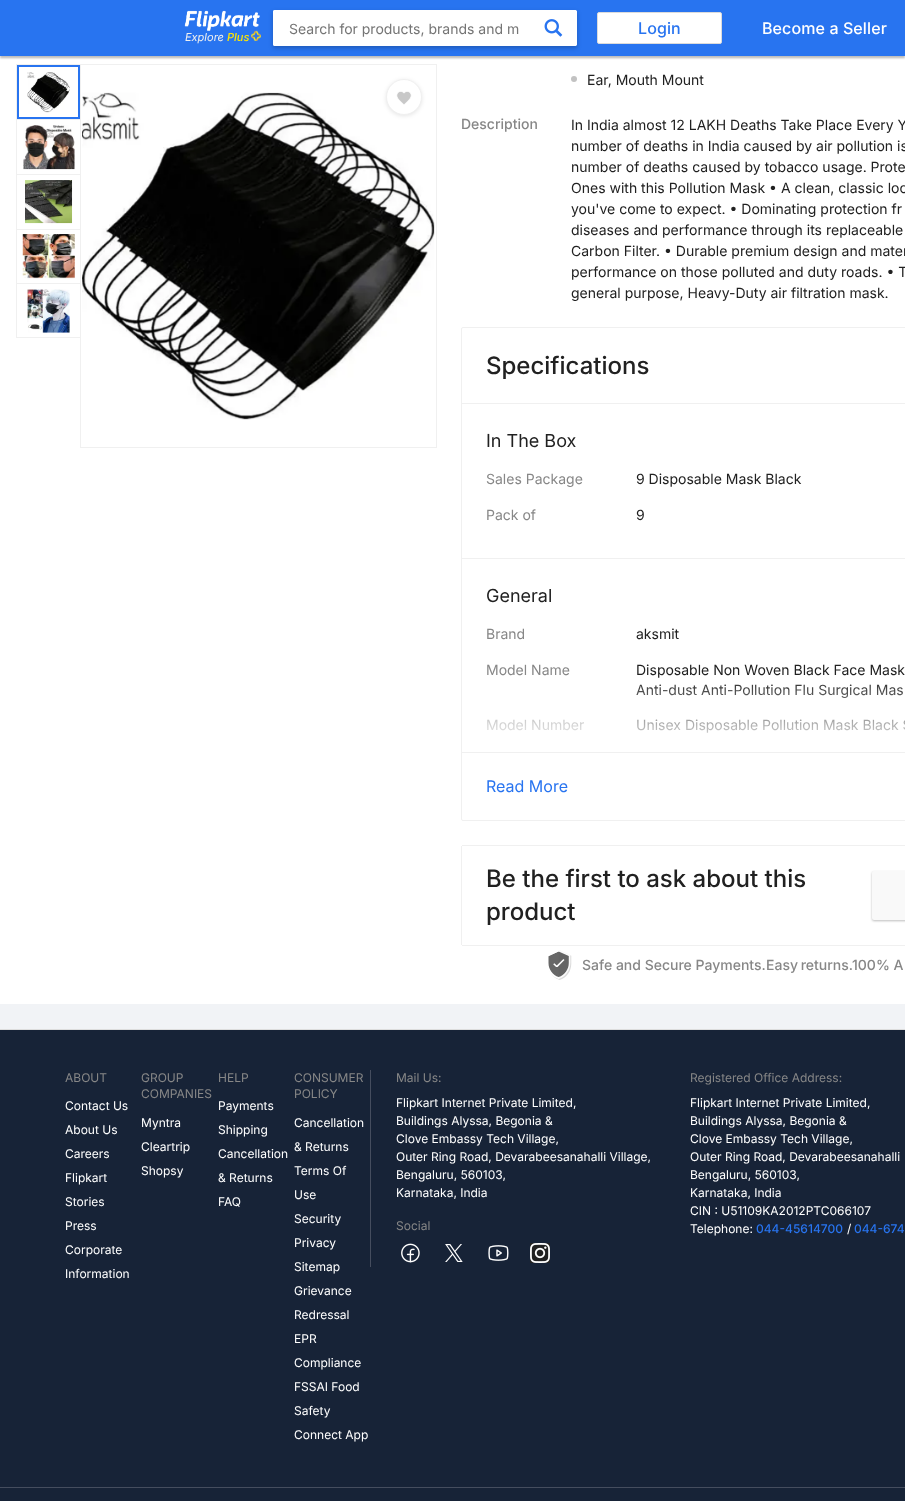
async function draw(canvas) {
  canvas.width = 905
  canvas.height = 1501
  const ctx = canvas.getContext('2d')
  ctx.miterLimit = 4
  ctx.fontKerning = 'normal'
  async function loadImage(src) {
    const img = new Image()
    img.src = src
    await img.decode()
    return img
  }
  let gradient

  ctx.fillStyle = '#f1f3f6'
  ctx.fillRect(0, 0, 905, 1501)
  ctx.fillStyle = '#fff'
  ctx.fillRect(0, 56, 905, 948)
  ctx.fillStyle = '#0000004d'
  ctx.filter = 'blur(1px)'
  ctx.beginPath()
  ctx.rect(0, 55, 905, 3)
  ctx.fill()
  ctx.filter = 'none'
  ctx.fillStyle = '#2874f0'
  ctx.fillRect(0, 0, 905, 56)
  ctx.fillStyle = '#0000003b'
  ctx.filter = 'blur(2px)'
  ctx.beginPath()
  ctx.rect(273, 12, 304, 36)
  ctx.fill()
  ctx.filter = 'none'
  ctx.fillStyle = '#fff'
  ctx.beginPath()
  ctx.roundRect(273, 10, 304, 36, 2)
  ctx.fill()
  ctx.beginPath()
  ctx.roundRect(273, 10, 262, 36, [2, 0, 0, 2])
  ctx.fill()
  ctx.font = '14px Inter'
  ctx.fillStyle = '#757575'
  ctx.fillText('Search for products, brands and m', 289, 34)
  ctx.fillStyle = '#fff'
  ctx.beginPath()
  ctx.roundRect(535.5, 10.5, 41, 35, 1.5)
  ctx.fill()
  ctx.strokeStyle = '#fff'
  ctx.stroke()
  ctx.drawImage(await loadImage('image0.png'), 544, 19, 19, 18)
  ctx.beginPath()
  ctx.roundRect(597.5, 12.5, 124, 31, 1.5)
  ctx.fill()
  ctx.strokeStyle = '#dbdbdb'
  ctx.stroke()
  ctx.letterSpacing = '0.1px'
  ctx.font = '500 16px Inter'
  ctx.fillStyle = '#2874f0'
  ctx.fillText('Login', 638, 34)
  ctx.fillStyle = '#fff'
  ctx.fillText('Become a Seller', 762, 34)
  ctx.drawImage(await loadImage('image1.png'), 184, 10, 76, 21)
  ctx.letterSpacing = '0px'
  ctx.font = 'italic 11px Inter'
  ctx.fillStyle = '#f0f0f0'
  ctx.fillText('Explore', 185, 41)
  ctx.font = 'italic 500 11px Inter'
  ctx.fillStyle = '#ffe500'
  ctx.fillText('Plus', 227, 41)
  ctx.drawImage(await loadImage('image2.png'), 251, 30, 10, 11)
  ctx.fillStyle = '#f0f0f0'
  ctx.fillRect(16, 64, 64, 1)
  ctx.fillRect(16, 64, 1, 55)
  ctx.strokeStyle = '#2874f0'
  ctx.lineWidth = 2
  ctx.strokeRect(18, 66, 61, 52)
  ctx.drawImage(await loadImage('image3.png'), 27, 72, 43, 41)
  ctx.fillRect(16, 119, 64, 1)
  ctx.fillRect(16, 119, 1, 55)
  ctx.drawImage(await loadImage('image4.png'), 23, 125, 52, 45)
  ctx.fillRect(16, 174, 64, 1)
  ctx.fillRect(16, 174, 1, 55)
  ctx.drawImage(await loadImage('image5.png'), 25, 180, 48, 44)
  ctx.fillRect(16, 229, 64, 1)
  ctx.fillRect(16, 229, 1, 54)
  ctx.drawImage(await loadImage('image6.png'), 22, 234, 53, 45)
  ctx.fillRect(16, 283, 64, 1)
  ctx.fillRect(16, 337, 64, 1)
  ctx.fillRect(16, 283, 1, 55)
  ctx.drawImage(await loadImage('image7.png'), 27, 289, 43, 44)
  ctx.strokeStyle = '#f0f0f0'
  ctx.lineWidth = 1
  ctx.strokeRect(80.5, 64.5, 356, 383)
  ctx.drawImage(await loadImage('image8.png'), 82, 92, 353, 328)
  ctx.fillStyle = '#0000001a'
  ctx.filter = 'blur(2px)'
  ctx.beginPath()
  ctx.roundRect(386, 80, 36, 36, 18)
  ctx.fill()
  ctx.filter = 'none'
  ctx.fillStyle = '#fff'
  ctx.beginPath()
  ctx.arc(404, 97, 17.5, 0, 2 * Math.PI)
  ctx.fill()
  ctx.stroke()
  ctx.drawImage(await loadImage('image9.png'), 396, 91, 16, 14)
  ctx.fillStyle = '#c2c2c2'
  ctx.beginPath()
  ctx.arc(574, 79, 3, 0, 2 * Math.PI)
  ctx.fill()
  ctx.font = '14px Inter'
  ctx.fillStyle = '#212121'
  ctx.fillText('Ear, Mouth Mount', 587, 85)
  ctx.font = '500 14px Inter'
  ctx.fillStyle = '#878787'
  ctx.fillText('Description', 461, 129)
  ctx.font = '14px Inter'
  ctx.fillStyle = '#212121'
  ctx.fillText('In India almost 12 LAKH Deaths Take Place Every Y', 571, 130)
  ctx.fillText('number of deaths in India caused by air pollution is', 571, 151)
  ctx.fillText('number of deaths caused by tobacco usage. Prote', 571, 172)
  ctx.fillText('Ones with this Pollution Mask • A clean, classic loo', 571, 193)
  ctx.fillText('you\'ve come to expect. • Dominating protection fr', 571, 214)
  ctx.fillText('diseases and performance through its replaceable', 571, 235)
  ctx.fillText('Carbon Filter. • Durable premium design and mater', 571, 256)
  ctx.fillText('performance on those polluted and duty roads. • T', 571, 277)
  ctx.fillText('general purpose, Heavy-Duty air filtration mask.', 571, 298)
  ctx.beginPath()
  ctx.roundRect(461.5, 327.5, 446, 493, 1.5)
  ctx.stroke()
  ctx.font = '500 24px Inter'
  ctx.fillText('Specifications', 486, 374)
  ctx.fillStyle = '#f0f0f0'
  ctx.fillRect(462, 403, 443, 1)
  ctx.font = '18px Inter'
  ctx.fillStyle = '#212121'
  ctx.fillText('In The Box', 486, 447)
  ctx.font = '14px Inter'
  ctx.fillStyle = '#878787'
  ctx.fillText('Sales Package', 486, 484)
  ctx.fillStyle = '#212121'
  ctx.fillText('9 Disposable Mask Black', 636, 484)
  ctx.fillStyle = '#878787'
  ctx.fillText('Pack of', 486, 520)
  ctx.fillStyle = '#212121'
  ctx.fillText('9', 636, 520)
  ctx.fillStyle = '#f0f0f0'
  ctx.fillRect(462, 558, 443, 1)
  ctx.font = '18px Inter'
  ctx.fillStyle = '#212121'
  ctx.fillText('General', 486, 602)
  ctx.font = '14px Inter'
  ctx.fillStyle = '#878787'
  ctx.fillText('Brand', 486, 639)
  ctx.fillStyle = '#212121'
  ctx.fillText('aksmit', 636, 639)
  ctx.fillStyle = '#878787'
  ctx.fillText('Model Name', 486, 675)
  ctx.fillStyle = '#212121'
  ctx.fillText('Disposable Non Woven Black Face Mask', 636, 675)
  ctx.fillText('Anti-dust Anti-Pollution Flu Surgical Mas', 636, 695)
  ctx.fillStyle = '#878787'
  ctx.fillText('Model Number', 486, 730)
  ctx.fillStyle = '#212121'
  ctx.fillText('Unisex Disposable Pollution Mask Black S', 636, 730)
  gradient = ctx.createLinearGradient(787, 672, 787, 752)
  gradient.addColorStop(0.05, '#ffffff00')
  gradient.addColorStop(1, '#fff')
  ctx.fillStyle = gradient
  ctx.fillRect(487, 684, 418, 49)
  ctx.fillStyle = '#f0f0f0'
  ctx.fillRect(462, 752, 443, 1)
  ctx.font = '16px Inter'
  ctx.fillStyle = '#2874f0'
  ctx.fillText('Read More', 486, 792)
  ctx.fillStyle = '#f0f0f0'
  ctx.fillRect(462, 845, 443, 1)
  ctx.fillRect(461, 846, 1, 99)
  ctx.fillRect(462, 945, 443, 1)
  ctx.font = '500 24px Inter'
  ctx.fillStyle = '#212121'
  ctx.fillText('Be the first to ask about this', 486, 887)
  ctx.fillText('product', 486, 920)
  ctx.fillStyle = '#00000042'
  ctx.filter = 'blur(1px)'
  ctx.beginPath()
  ctx.roundRect(872, 872, 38, 49, 2)
  ctx.fill()
  ctx.filter = 'none'
  ctx.fillStyle = '#f9f9f9'
  ctx.beginPath()
  ctx.roundRect(872, 871, 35, 49, 2)
  ctx.fill()
  ctx.drawImage(await loadImage('image10.png'), 548, 950, 24, 30)
  ctx.font = '500 14px Inter'
  ctx.fillStyle = '#878787'
  ctx.fillText('Safe and Secure Payments.', 582, 970)
  ctx.wordSpacing = '-1px'
  ctx.fillText('Easy returns.', 766, 970)
  ctx.wordSpacing = '0px'
  ctx.fillText('100% A', 852, 970)
  ctx.fillStyle = '#172337'
  ctx.fillRect(0, 1030, 905, 471)
  ctx.fillStyle = '#ddd'
  ctx.fillRect(0, 1029, 905, 1)
  ctx.font = '12px Inter'
  ctx.fillStyle = '#878787'
  ctx.fillText('ABOUT', 65, 1082)
  ctx.fillStyle = '#fff'
  ctx.fillText('Contact Us', 65, 1110)
  ctx.fillText('About Us', 65, 1134)
  ctx.fillText('Careers', 65, 1158)
  ctx.fillText('Flipkart', 65, 1182)
  ctx.fillText('Stories', 65, 1206)
  ctx.fillText('Press', 65, 1230)
  ctx.fillText('Corporate', 65, 1254)
  ctx.fillText('Information', 65, 1278)
  ctx.fillStyle = '#878787'
  ctx.fillText('GROUP', 141, 1082)
  ctx.fillText('COMPANIES', 141, 1098)
  ctx.fillStyle = '#fff'
  ctx.fillText('Myntra', 141, 1127)
  ctx.fillText('Cleartrip', 141, 1151)
  ctx.fillText('Shopsy', 141, 1175)
  ctx.fillStyle = '#878787'
  ctx.fillText('HELP', 218, 1082)
  ctx.fillStyle = '#fff'
  ctx.fillText('Payments', 218, 1110)
  ctx.fillText('Shipping', 218, 1134)
  ctx.fillText('Cancellation', 218, 1158)
  ctx.fillText('& Returns', 218, 1182)
  ctx.fillText('FAQ', 218, 1206)
  ctx.fillStyle = '#878787'
  ctx.fillText('CONSUMER', 294, 1082)
  ctx.fillText('POLICY', 294, 1098)
  ctx.fillStyle = '#fff'
  ctx.fillText('Cancellation', 294, 1127)
  ctx.fillText('& Returns', 294, 1151)
  ctx.fillText('Terms Of', 294, 1175)
  ctx.fillText('Use', 294, 1199)
  ctx.fillText('Security', 294, 1223)
  ctx.fillText('Privacy', 294, 1247)
  ctx.fillText('Sitemap', 294, 1271)
  ctx.fillText('Grievance', 294, 1295)
  ctx.fillText('Redressal', 294, 1319)
  ctx.fillText('EPR', 294, 1343)
  ctx.fillText('Compliance', 294, 1367)
  ctx.fillText('FSSAI Food', 294, 1391)
  ctx.fillText('Safety', 294, 1415)
  ctx.fillText('Connect App', 294, 1439)
  ctx.fillStyle = '#454d5e'
  ctx.fillRect(370, 1070, 1, 197)
  ctx.fillStyle = '#878787'
  ctx.fillText('Mail Us:', 396, 1082)
  ctx.fillStyle = '#fff'
  ctx.fillText('Flipkart Internet Private Limited,', 396, 1107)
  ctx.fillText('Buildings Alyssa, Begonia &', 396, 1125)
  ctx.fillText('Clove Embassy Tech Village,', 396, 1143)
  ctx.fillText('Outer Ring Road, Devarabeesanahalli Village,', 396, 1161)
  ctx.fillText('Bengaluru, 560103,', 396, 1179)
  ctx.fillText('Karnataka, India', 396, 1197)
  ctx.fillStyle = '#878787'
  ctx.fillText('Social', 396, 1230)
  ctx.drawImage(await loadImage('image11.png'), 401, 1243, 19, 20)
  ctx.drawImage(await loadImage('image12.png'), 445, 1244, 18, 18)
  ctx.drawImage(await loadImage('image13.png'), 488, 1245, 21, 16)
  ctx.drawImage(await loadImage('image14.png'), 530, 1243, 20, 20)
  ctx.fillText('Registered Office Address:', 690, 1082)
  ctx.fillStyle = '#fff'
  ctx.fillText('Flipkart Internet Private Limited,', 690, 1107)
  ctx.fillText('Buildings Alyssa, Begonia &', 690, 1125)
  ctx.fillText('Clove Embassy Tech Village,', 690, 1143)
  ctx.fillText('Outer Ring Road, Devarabeesanahalli', 690, 1161)
  ctx.fillText('Bengaluru, 560103,', 690, 1179)
  ctx.fillText('Karnataka, India', 690, 1197)
  ctx.fillText('CIN : U51109KA2012PTC066107', 690, 1215)
  ctx.fillText('Telephone:', 690, 1233)
  ctx.font = '500 12px Inter'
  ctx.fillStyle = '#2874f0'
  ctx.fillText('044-45614700', 756, 1233)
  ctx.font = '12px Inter'
  ctx.fillStyle = '#fff'
  ctx.fillText('/', 847, 1233)
  ctx.font = '500 12px Inter'
  ctx.fillStyle = '#2874f0'
  ctx.fillText('044-674', 854, 1233)
  ctx.fillStyle = '#454d5e'
  ctx.fillRect(0, 1487, 905, 1)
}

draw(document.querySelector('canvas'))
